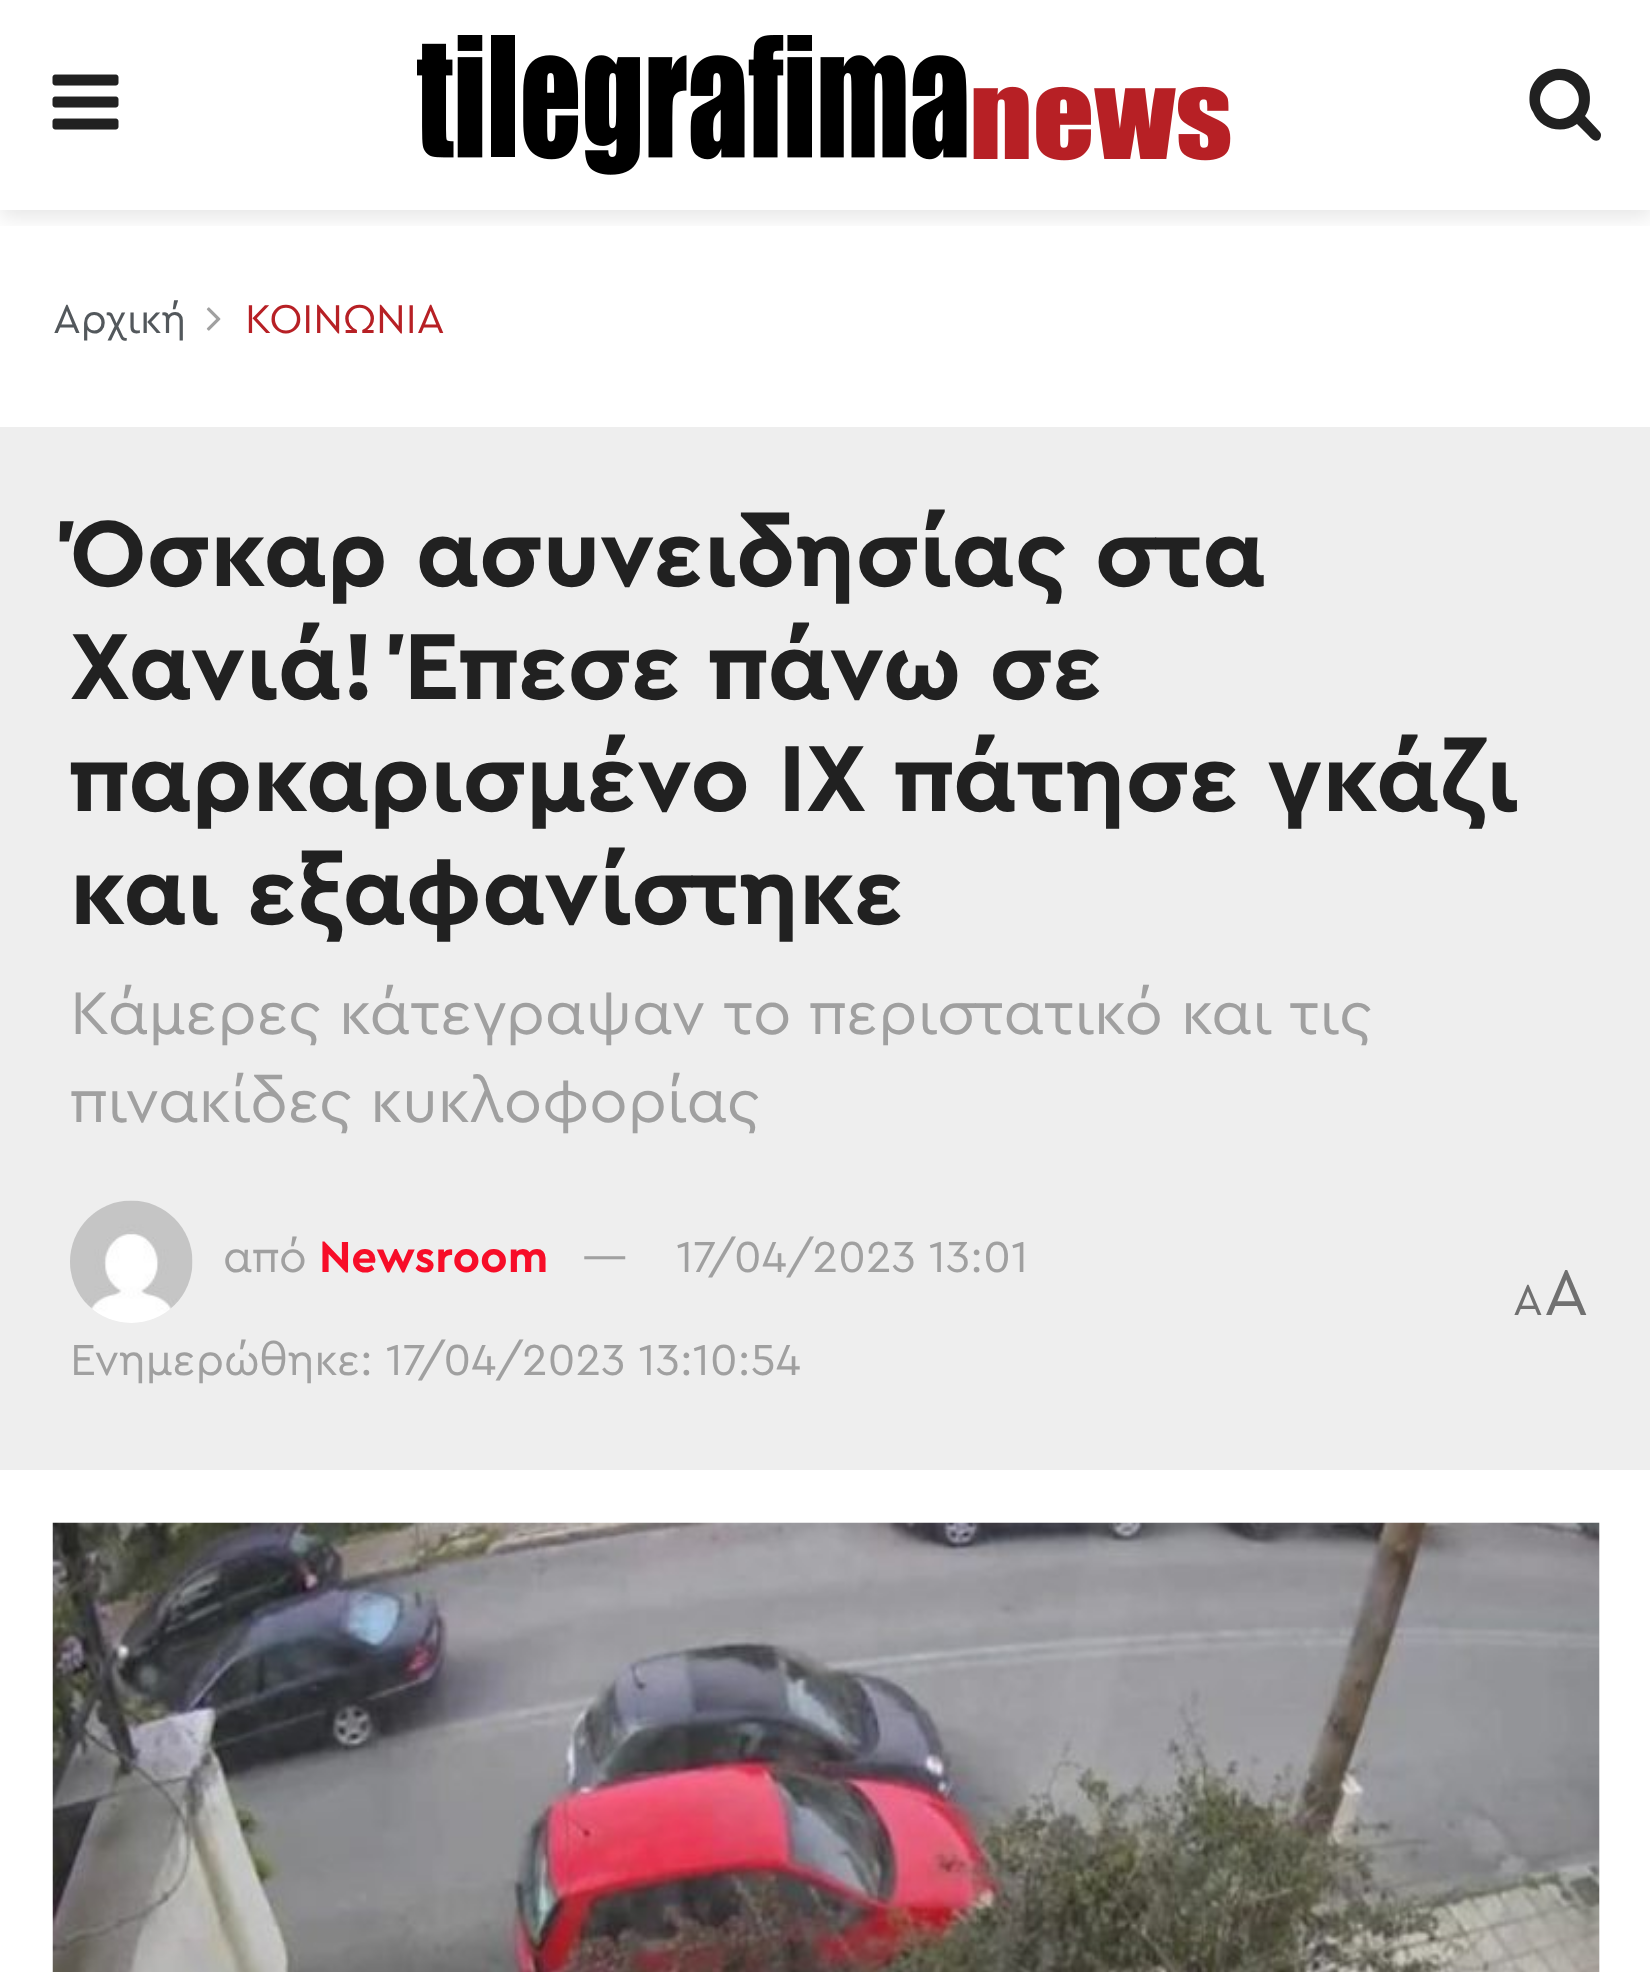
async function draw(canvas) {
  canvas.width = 1650
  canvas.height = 1972
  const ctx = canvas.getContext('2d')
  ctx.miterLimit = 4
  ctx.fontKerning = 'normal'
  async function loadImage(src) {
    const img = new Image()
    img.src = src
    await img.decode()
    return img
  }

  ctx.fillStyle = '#fff'
  ctx.fillRect(0, 0, 1650, 1972)
  ctx.save()
  ctx.beginPath()
  ctx.rect(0, 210, 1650, 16)
  ctx.clip()
  ctx.fillStyle = '#0000001a'
  ctx.filter = 'blur(10.5px)'
  ctx.beginPath()
  ctx.rect(0, 7, 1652, 210)
  ctx.fill()
  ctx.filter = 'none'
  ctx.restore()
  ctx.drawImage(await loadImage('image0.png'), 52, 74, 67, 56)
  ctx.drawImage(await loadImage('image1.png'), 417, 35, 814, 140)
  ctx.fillStyle = '#212121'
  ctx.beginPath()
  ctx.moveTo(1573, 113)
  ctx.bezierCurveTo(1591, 95, 1564, 68, 1546, 86)
  ctx.bezierCurveTo(1528, 104, 1555, 131, 1573, 113)
  ctx.closePath()
  ctx.moveTo(1601, 135)
  ctx.bezierCurveTo(1601, 137, 1600, 139, 1599, 140)
  ctx.bezierCurveTo(1594, 143, 1590, 137, 1587, 134)
  ctx.lineTo(1577, 124)
  ctx.bezierCurveTo(1562, 135, 1540, 129, 1533, 112)
  ctx.bezierCurveTo(1529, 106, 1529, 99, 1530, 92)
  ctx.bezierCurveTo(1538, 62, 1580, 61, 1589, 90)
  ctx.bezierCurveTo(1591, 99, 1590, 109, 1585, 116)
  ctx.lineTo(1599, 131)
  ctx.bezierCurveTo(1600, 132, 1601, 133, 1601, 135)
  ctx.closePath()
  ctx.fill()
  ctx.font = '42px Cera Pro'
  ctx.fillStyle = '#53585c'
  ctx.fillText('Αρχική', 53, 333)
  ctx.drawImage(await loadImage('image2.png'), 206, 307, 15, 24)
  ctx.fillStyle = '#b72025'
  ctx.fillText('ΚΟΙΝΩΝΙΑ', 245, 333)
  ctx.fillStyle = '#eee'
  ctx.fillRect(0, 427, 1650, 1043)
  ctx.letterSpacing = '0.35px'
  ctx.font = 'bold 98px Cera Pro'
  ctx.fillStyle = '#212121'
  ctx.fillText('Όσκαρ ασυνειδησίας στα', 70, 586)
  ctx.fillText('Χανιά! Έπεσε πάνω σε', 70, 699)
  ctx.fillText('παρκαρισμένο ΙΧ πάτησε γκάζι', 70, 811)
  ctx.fillText('και εξαφανίστηκε', 70, 924)
  ctx.letterSpacing = '0px'
  ctx.font = '63px Cera Pro'
  ctx.fillStyle = '#a0a0a0'
  ctx.fillText('Κάμερες κάτεγραψαν το περιστατικό και τις', 70, 1034)
  ctx.fillText('πινακίδες κυκλοφορίας', 70, 1122)
  ctx.drawImage(await loadImage('image3.png'), 70, 1200, 123, 123)
  ctx.font = '45.5px Cera Pro'
  ctx.fillText('από', 223, 1272)
  ctx.font = 'bold 45.5px Cera Pro'
  ctx.fillStyle = '#f70d28'
  ctx.fillText('Newsroom', 319, 1272)
  ctx.font = '45.5px Cera Pro'
  ctx.fillStyle = '#a0a0a0'
  ctx.fillText('—', 582, 1272)
  ctx.fillText('17/04/2023 13:01', 676, 1272)
  ctx.fillText('Ενημερώθηκε: 17/04/2023 13:10:54', 70, 1375)
  ctx.font = '45px Cera Pro'
  ctx.fillStyle = '#707070'
  ctx.fillText('A', 1513, 1315)
  ctx.font = '67px Cera Pro'
  ctx.fillText('A', 1544, 1315)
  ctx.fillStyle = '#f7f7f7'
  ctx.fillRect(1599, 1523, 1, 449)
  ctx.drawImage(await loadImage('image4.png'), 52, 1522, 1548, 450)
}

draw(document.querySelector('canvas'))
